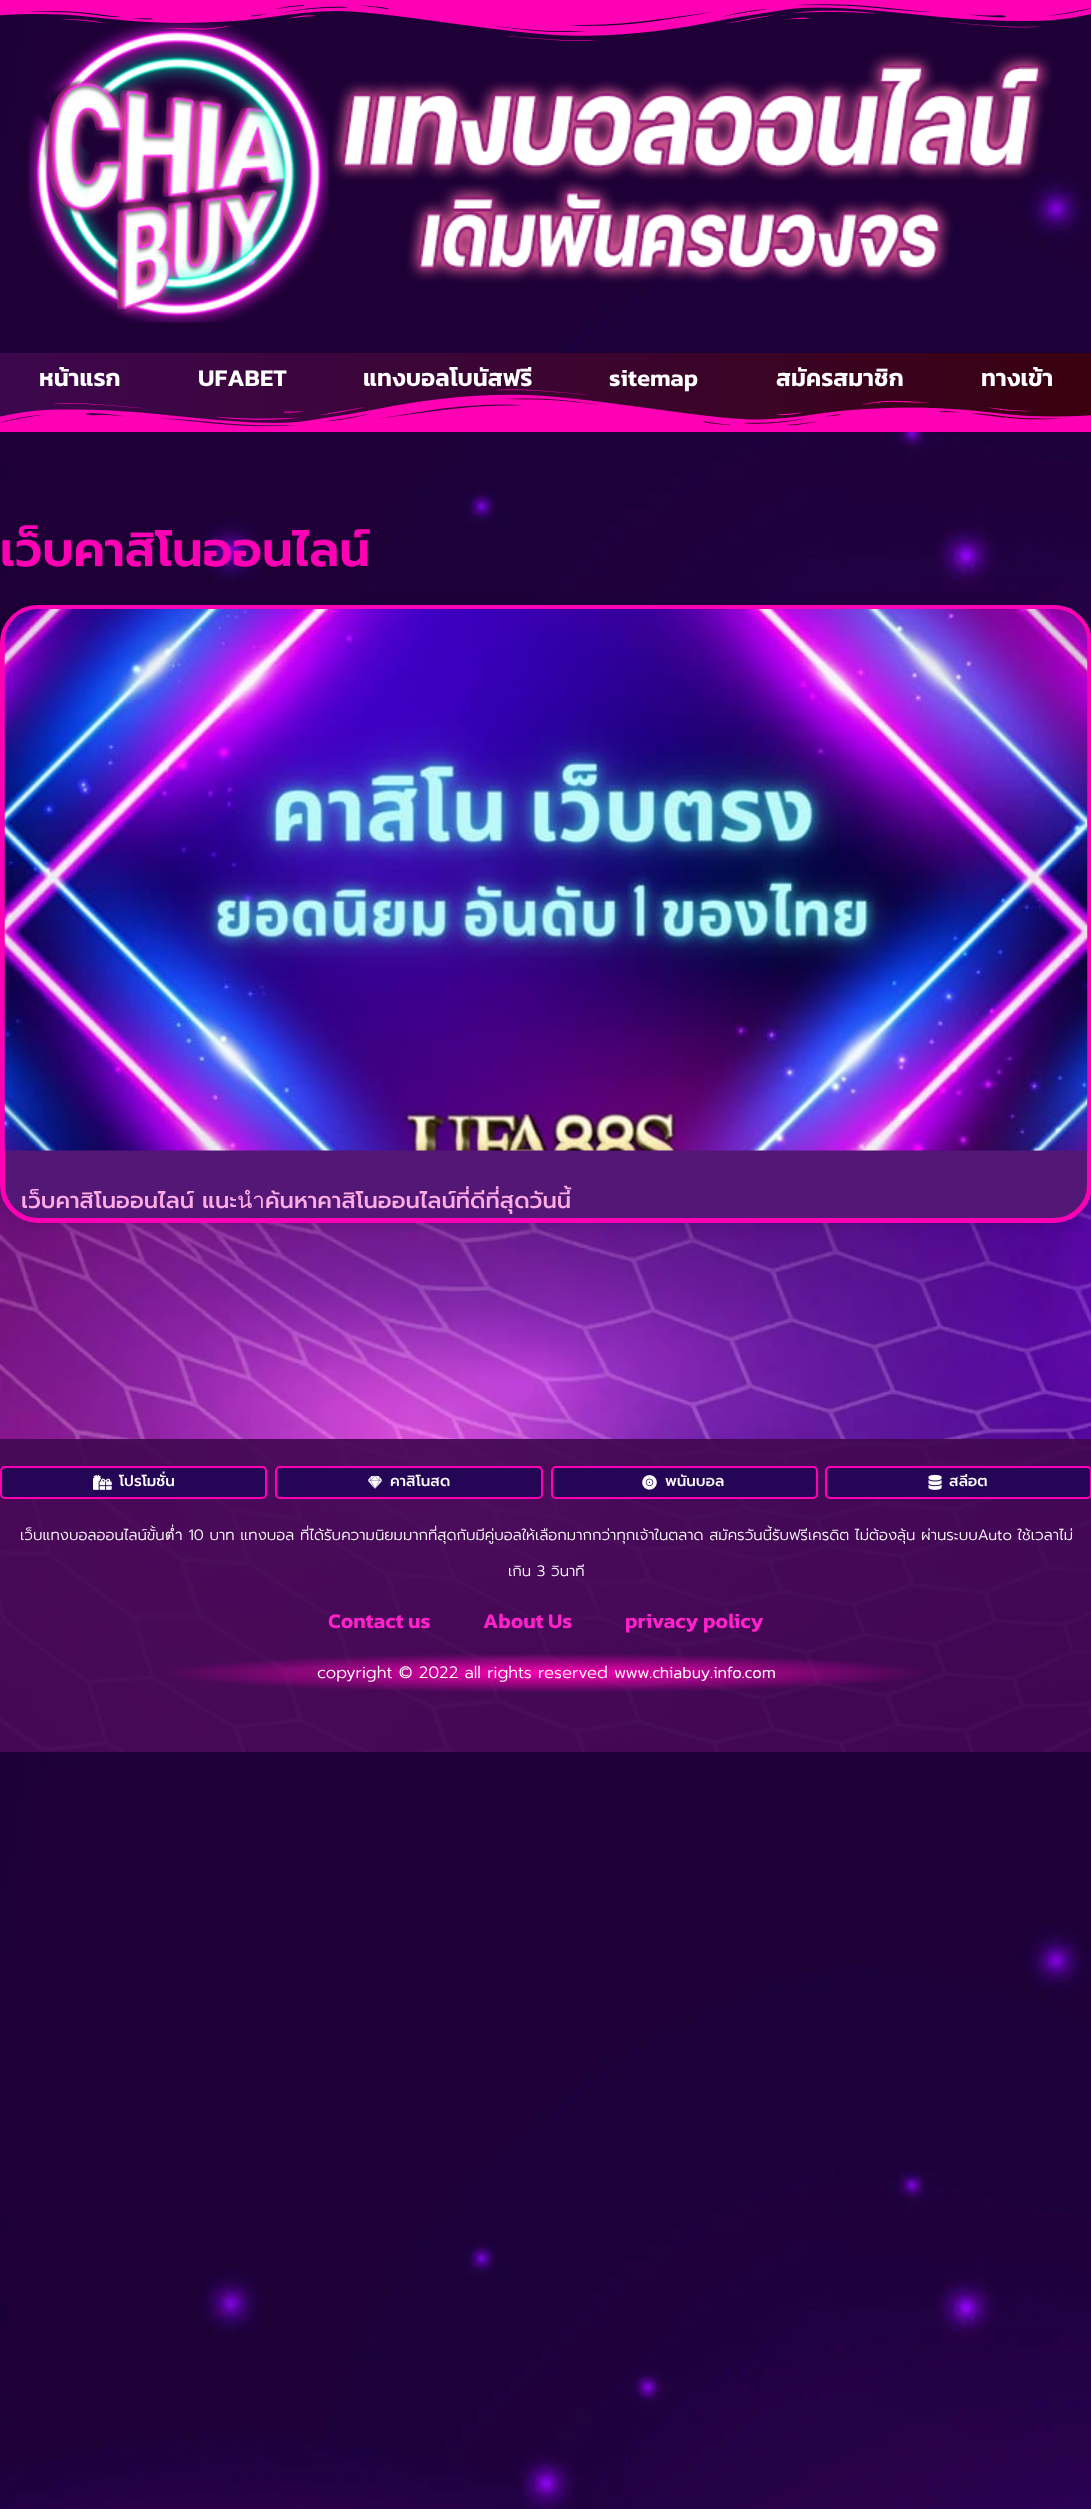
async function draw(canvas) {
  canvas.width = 1091
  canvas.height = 2509
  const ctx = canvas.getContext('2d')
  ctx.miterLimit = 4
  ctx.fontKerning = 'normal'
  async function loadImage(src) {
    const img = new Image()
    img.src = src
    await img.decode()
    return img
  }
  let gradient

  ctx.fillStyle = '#fff'
  ctx.fillRect(0, 0, 1091, 2509)
  ctx.drawImage(await loadImage('image0.png'), 0, 4, 1091, 2505)
  ctx.drawImage(await loadImage('image2.png'), 28, 22, 1025, 301)
  ctx.drawImage(await loadImage('image1.png'), 0, 0, 1091, 42)
  ctx.font = '600 24px Kanit'
  ctx.fillText('หน้าแรก', 39, 386)
  ctx.fillText('UFABET', 198, 386)
  ctx.fillText('แทงบอลโบนัสฟรี', 363, 386)
  ctx.drawImage(await loadImage('image3.png'), 0, 389, 1091, 43)
  ctx.fillText('sitemap', 609, 386)
  ctx.fillText('สมัครสมาชิก', 776, 386)
  ctx.fillText('ทางเข้า', 981, 386)
  ctx.font = '600 48px Prompt'
  ctx.fillStyle = '#ff00b4'
  ctx.fillText('เว็บคาสิโนออนไลน์', 0, 566)
  ctx.fillStyle = '#00000026'
  ctx.filter = 'blur(7.5px)'
  ctx.beginPath()
  ctx.roundRect(0, 605, 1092, 618, 38)
  ctx.fill()
  ctx.filter = 'none'
  ctx.fillStyle = '#531775'
  ctx.beginPath()
  ctx.roundRect(2.5, 607.5, 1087, 613, 35.5)
  ctx.fill()
  ctx.strokeStyle = '#ff00b4'
  ctx.lineWidth = 5
  ctx.stroke()
  ctx.drawImage(await loadImage('image4.png'), 4, 609, 1084, 542)
  ctx.font = '500 22.5px Prompt'
  ctx.fillStyle = '#ffabe6'
  ctx.fillText('เว็บคาสิโนออนไลน์ แนะนำค้นหาคาสิโนออนไลน์ที่ดีที่สุดวันนี้', 21, 1208)
  ctx.fillStyle = '#420851eb'
  ctx.fillRect(0, 1439, 1091, 313)
  ctx.fillStyle = '#240556'
  ctx.beginPath()
  ctx.roundRect(1, 1467, 265, 31, 4)
  ctx.fill()
  ctx.lineWidth = 2
  ctx.stroke()
  ctx.drawImage(await loadImage('image5.png'), 93, 1474, 19, 16)
  ctx.font = '500 15px Prompt'
  ctx.fillStyle = '#fff'
  ctx.fillText('โปรโมชั่น', 119, 1486)
  ctx.fillStyle = '#240556'
  ctx.beginPath()
  ctx.roundRect(276, 1467, 266, 31, 4)
  ctx.fill()
  ctx.stroke()
  ctx.drawImage(await loadImage('image6.png'), 367, 1475, 16, 14)
  ctx.fillStyle = '#fff'
  ctx.fillText('คาสิโนสด', 390, 1486)
  ctx.fillStyle = '#240556'
  ctx.beginPath()
  ctx.roundRect(552, 1467, 265, 31, 4)
  ctx.fill()
  ctx.stroke()
  ctx.drawImage(await loadImage('image7.png'), 642, 1475, 15, 15)
  ctx.fillStyle = '#fff'
  ctx.fillText('พนันบอล', 665, 1486)
  ctx.fillStyle = '#240556'
  ctx.beginPath()
  ctx.roundRect(826, 1467, 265, 31, 4)
  ctx.fill()
  ctx.stroke()
  ctx.drawImage(await loadImage('image8.png'), 928, 1474, 14, 16)
  ctx.fillStyle = '#fff'
  ctx.fillText('สลีอต', 949, 1486)
  ctx.font = '300 15px Prompt'
  ctx.fillText('เว็บแทงบอลออนไลน์ขั้นต่ำ 10 บาท แทงบอล ที่ได้รับความนิยมมากที่สุดกับมีคู่บอลให้เลือกมากกว่าทุกเจ้าในตลาด สมัครวันนี้รับฟรีเครดิต ไม่ต้องลุ้น ผ่านระบบAuto ใช้เวลาไม่', 20, 1540)
  ctx.fillText('เกิน 3 วินาที', 508, 1576)
  ctx.font = '600 21px Kanit'
  ctx.fillStyle = '#ff21cc'
  ctx.fillText('Contact us', 328, 1628)
  ctx.fillText('About Us', 483, 1628)
  ctx.fillText('privacy policy', 625, 1628)
  gradient = ctx.createRadialGradient(546, 33116.82, 0, 546, 33116.82, 772)
  gradient.addColorStop(0, '#ff00b4')
  gradient.addColorStop(0.5, '#ff00b400')
  ctx.fillStyle = gradient
  ctx.beginPath()
  ctx.rect(169, 1654, 754, 38)
  ctx.save()
  ctx.clip()
  ctx.scale(1, 39 / 772)
  ctx.fillRect(0, 0, 1091, 49666)
  ctx.restore()
  ctx.font = '300 16.5px Prompt'
  ctx.fillStyle = '#fff'
  ctx.fillText('copyright © 2022 all rights reserved', 317, 1678)
  ctx.font = '300 16.5px Kanit'
  ctx.fillText('www.chiabuy.info.com', 614, 1678)
}

draw(document.querySelector('canvas'))
